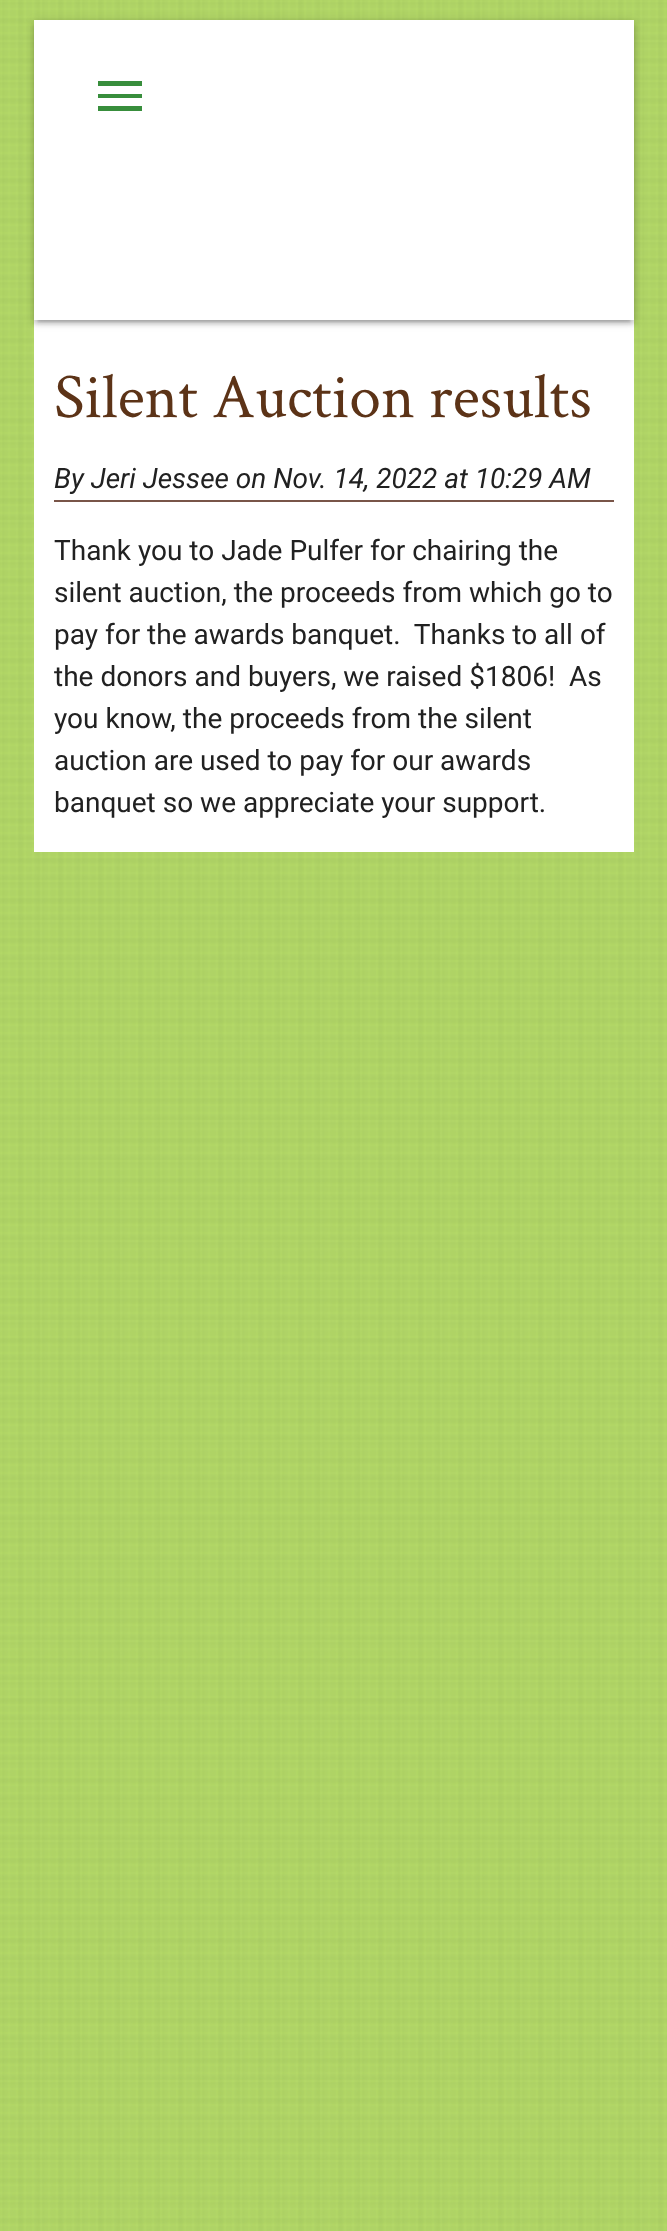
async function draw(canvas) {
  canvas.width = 667
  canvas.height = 2231
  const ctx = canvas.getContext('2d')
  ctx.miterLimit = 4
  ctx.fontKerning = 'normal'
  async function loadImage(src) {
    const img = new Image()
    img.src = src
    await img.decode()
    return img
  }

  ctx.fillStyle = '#fff'
  ctx.fillRect(0, 0, 667, 2231)
  ctx.drawImage(await loadImage('image0.png'), 0, 0, 667, 2231)
  ctx.fillRect(34, 20, 600, 832)
  ctx.save()
  ctx.beginPath()
  ctx.moveTo(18, 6)
  ctx.lineTo(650, 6)
  ctx.lineTo(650, 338)
  ctx.lineTo(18, 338)
  ctx.closePath()
  ctx.moveTo(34, 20)
  ctx.lineTo(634, 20)
  ctx.lineTo(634, 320)
  ctx.lineTo(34, 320)
  ctx.closePath()
  ctx.clip('evenodd')
  ctx.fillStyle = '#00000033'
  ctx.filter = 'blur(5px)'
  ctx.beginPath()
  ctx.rect(34, 22, 600, 300)
  ctx.fill()
  ctx.filter = 'none'
  ctx.restore()
  ctx.save()
  ctx.beginPath()
  ctx.rect(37, 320, 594, 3)
  ctx.clip()
  ctx.fillStyle = '#0000001f'
  ctx.filter = 'blur(1px)'
  ctx.beginPath()
  ctx.rect(38, 30, 592, 292)
  ctx.fill()
  ctx.filter = 'none'
  ctx.restore()
  ctx.save()
  ctx.beginPath()
  ctx.moveTo(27, 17)
  ctx.lineTo(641, 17)
  ctx.lineTo(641, 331)
  ctx.lineTo(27, 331)
  ctx.closePath()
  ctx.moveTo(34, 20)
  ctx.lineTo(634, 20)
  ctx.lineTo(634, 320)
  ctx.lineTo(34, 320)
  ctx.closePath()
  ctx.clip('evenodd')
  ctx.fillStyle = '#00000024'
  ctx.filter = 'blur(2px)'
  ctx.beginPath()
  ctx.rect(34, 24, 600, 300)
  ctx.fill()
  ctx.filter = 'none'
  ctx.restore()
  ctx.fillStyle = '#388e3c'
  ctx.beginPath()
  ctx.moveTo(98, 81)
  ctx.lineTo(142, 81)
  ctx.lineTo(142, 86)
  ctx.lineTo(98, 86)
  ctx.closePath()
  ctx.moveTo(98, 98)
  ctx.lineTo(98, 94)
  ctx.lineTo(142, 94)
  ctx.lineTo(142, 98)
  ctx.closePath()
  ctx.moveTo(98, 111)
  ctx.lineTo(98, 106)
  ctx.lineTo(142, 106)
  ctx.lineTo(142, 111)
  ctx.closePath()
  ctx.fill()
  ctx.font = '63.75px Crimson Text'
  ctx.fillStyle = '#5c3317'
  ctx.fillText('Silent Auction results', 54, 417)
  ctx.font = 'italic 28px Roboto'
  ctx.fillStyle = '#212121'
  ctx.fillText('By Jeri Jessee on Nov. 14, 2022 at 10:29 AM', 54, 488)
  ctx.fillStyle = '#795548'
  ctx.fillRect(54, 500, 560, 2)
  ctx.font = '28px Roboto'
  ctx.fillStyle = '#212121'
  ctx.fillText('Thank you to Jade Pulfer for chairing the', 54, 560)
  ctx.fillText('silent auction, the proceeds from which go to', 54, 602)
  ctx.fillText('pay for the awards banquet.  Thanks to all of', 54, 644)
  ctx.fillText('the donors and buyers, we raised $1806!  As', 54, 686)
  ctx.fillText('you know, the proceeds from the silent', 54, 728)
  ctx.fillText('auction are used to pay for our awards', 54, 770)
  ctx.fillText('banquet so we appreciate your support.', 54, 812)
}

draw(document.querySelector('canvas'))
